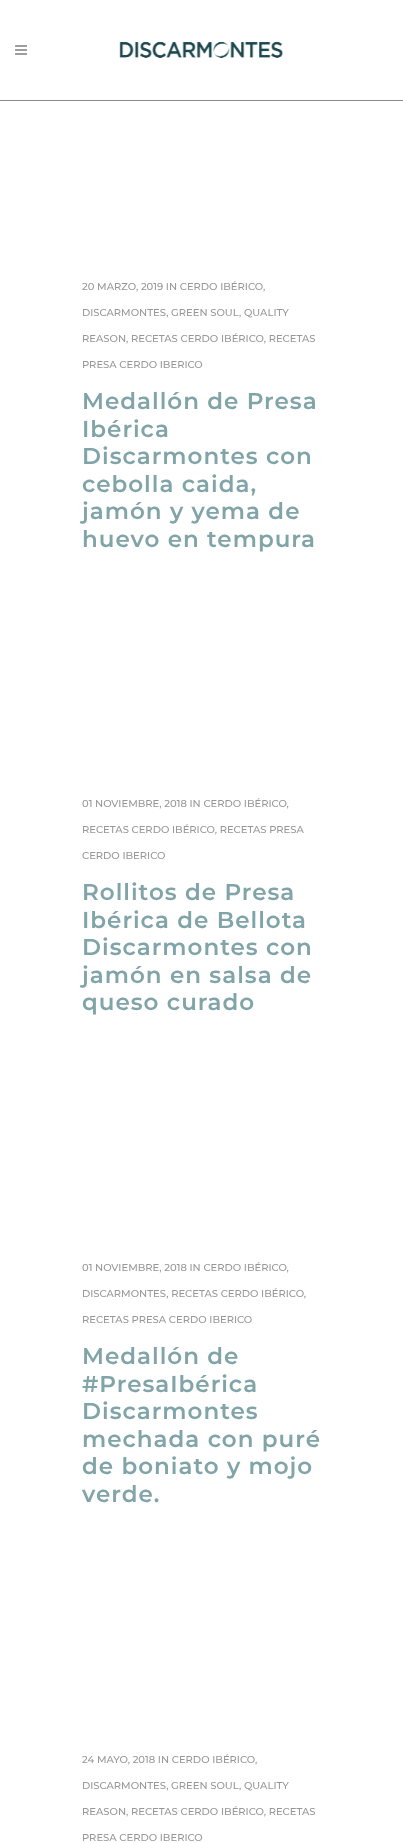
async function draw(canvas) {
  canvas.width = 403
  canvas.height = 1843
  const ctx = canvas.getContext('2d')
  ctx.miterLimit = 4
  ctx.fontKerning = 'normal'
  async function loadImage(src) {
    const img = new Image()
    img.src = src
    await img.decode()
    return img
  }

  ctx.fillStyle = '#fff'
  ctx.fillRect(0, 0, 403, 1843)
  ctx.fillStyle = '#898989'
  ctx.fillRect(0, 100, 403, 1)
  ctx.drawImage(await loadImage('image0.png'), 15, 45, 12, 10)
  ctx.drawImage(await loadImage('image1.png'), 119, 41, 164, 17)
  ctx.font = '500 10px Montserrat'
  ctx.fillStyle = '#979797'
  ctx.fillText('20 MARZO, 2019 IN CERDO IBÉRICO,', 82, 290)
  ctx.fillText('DISCARMONTES,', 82, 316)
  ctx.fillText('GREEN SOUL', 171, 316)
  ctx.fillText(', QUALITY', 239, 316)
  ctx.fillText('REASON, RECETAS CERDO IBÉRICO, RECETAS', 82, 342)
  ctx.fillText('PRESA CERDO IBERICO', 82, 368)
  ctx.letterSpacing = '1px'
  ctx.font = '600 23px Montserrat'
  ctx.fillStyle = '#81a4a8'
  ctx.fillText('Medallón de Presa', 82, 409)
  ctx.fillText('Ibérica', 82, 437)
  ctx.fillText('Discarmontes con', 82, 464)
  ctx.fillText('cebolla caida,', 82, 492)
  ctx.fillText('jamón y yema de', 82, 519)
  ctx.fillText('huevo en tempura', 82, 547)
  ctx.letterSpacing = '0px'
  ctx.font = '500 10px Montserrat'
  ctx.fillStyle = '#979797'
  ctx.fillText('01 NOVIEMBRE, 2018 IN CERDO IBÉRICO,', 82, 807)
  ctx.fillText('RECETAS CERDO IBÉRICO, RECETAS PRESA', 82, 833)
  ctx.fillText('CERDO IBERICO', 82, 859)
  ctx.letterSpacing = '1px'
  ctx.font = '600 23px Montserrat'
  ctx.fillStyle = '#81a4a8'
  ctx.fillText('Rollitos de Presa', 82, 900)
  ctx.fillText('Ibérica de Bellota', 82, 928)
  ctx.fillText('Discarmontes con', 82, 955)
  ctx.fillText('jamón en salsa de', 82, 983)
  ctx.fillText('queso curado', 82, 1010)
  ctx.letterSpacing = '0px'
  ctx.font = '500 10px Montserrat'
  ctx.fillStyle = '#979797'
  ctx.fillText('01 NOVIEMBRE, 2018 IN CERDO IBÉRICO,', 82, 1271)
  ctx.fillText('DISCARMONTES, RECETAS CERDO IBÉRICO,', 82, 1297)
  ctx.fillText('RECETAS PRESA CERDO IBERICO', 82, 1323)
  ctx.letterSpacing = '1px'
  ctx.font = '600 23px Montserrat'
  ctx.fillStyle = '#81a4a8'
  ctx.fillText('Medallón de', 82, 1364)
  ctx.fillText('#PresaIbérica', 82, 1392)
  ctx.fillText('Discarmontes', 82, 1419)
  ctx.fillText('mechada con puré', 82, 1447)
  ctx.fillText('de boniato y mojo', 82, 1474)
  ctx.fillText('verde.', 82, 1502)
  ctx.letterSpacing = '0px'
  ctx.font = '500 10px Montserrat'
  ctx.fillStyle = '#979797'
  ctx.fillText('24 MAYO, 2018 IN CERDO IBÉRICO,', 82, 1763)
  ctx.fillText('DISCARMONTES,', 82, 1789)
  ctx.fillText('GREEN SOUL', 171, 1789)
  ctx.fillText(', QUALITY', 239, 1789)
  ctx.fillText('REASON, RECETAS CERDO IBÉRICO, RECETAS', 82, 1815)
  ctx.fillText('PRESA CERDO IBERICO', 82, 1841)
}

draw(document.querySelector('canvas'))
